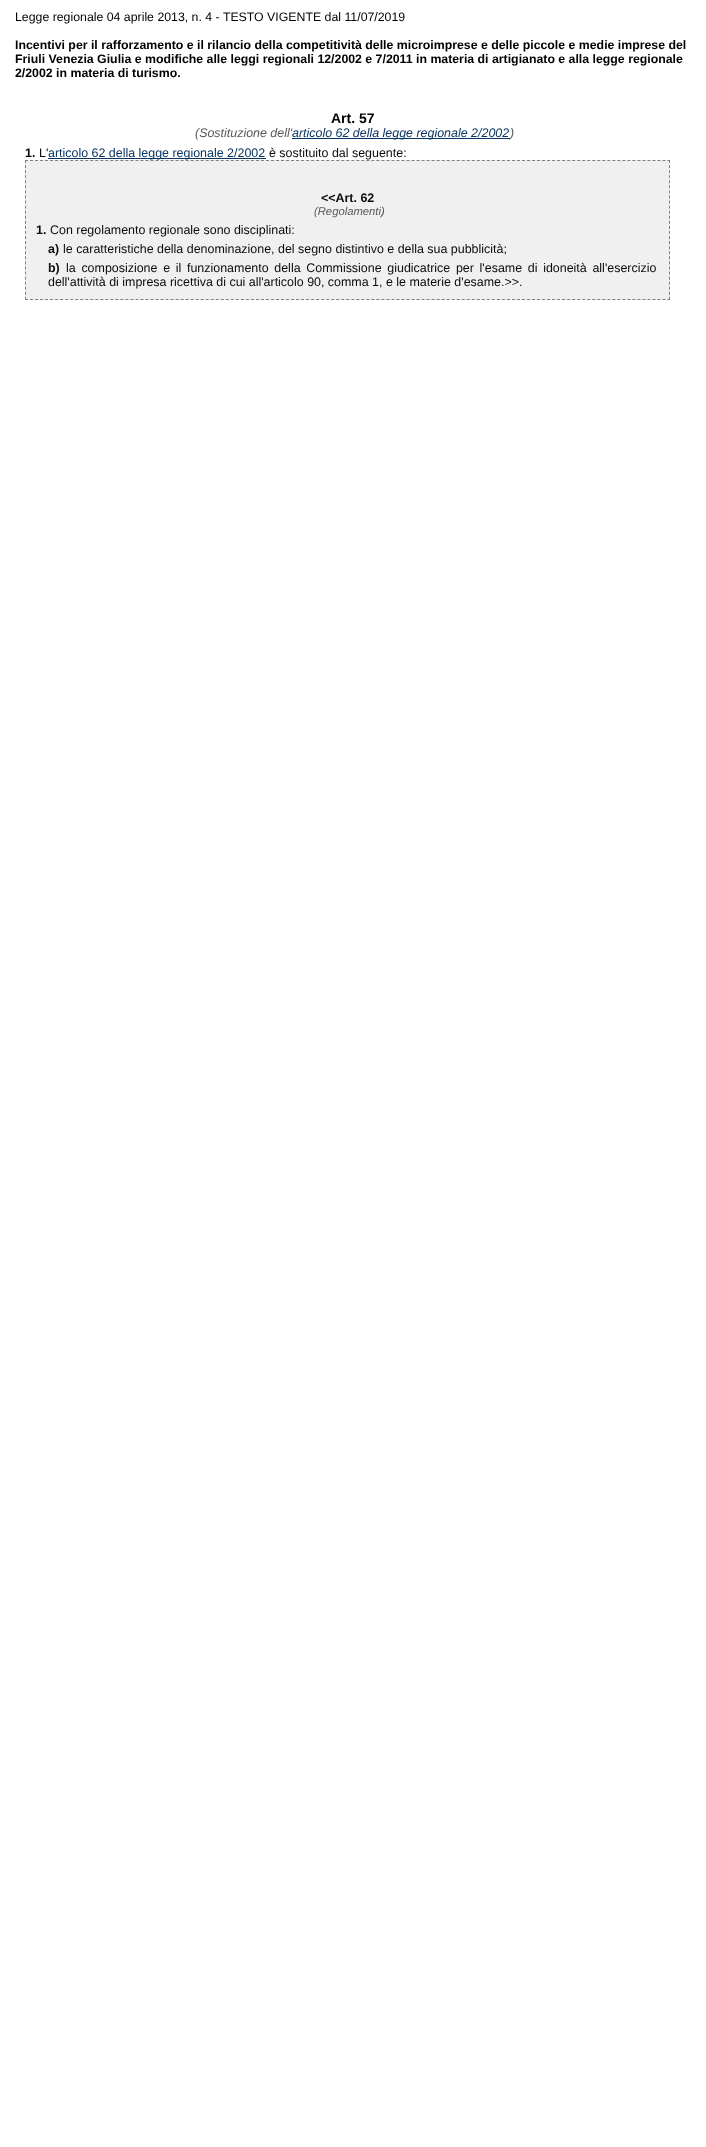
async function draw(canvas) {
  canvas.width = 706
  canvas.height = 2147
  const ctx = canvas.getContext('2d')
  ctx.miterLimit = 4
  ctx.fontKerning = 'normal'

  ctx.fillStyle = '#fff'
  ctx.fillRect(0, 0, 706, 2147)
  ctx.font = '12.32px Liberation Sans'
  ctx.fillStyle = '#000'
  ctx.fillText('Legge regionale 04 aprile 2013, n. 4 - TESTO VIGENTE dal 11/07/2019', 15, 21)
  ctx.font = 'bold 12.32px Liberation Sans'
  ctx.fillText('Incentivi per il rafforzamento e il rilancio della competitività delle microimprese e delle piccole e medie imprese del', 15, 49)
  ctx.fillText('Friuli Venezia Giulia e modifiche alle leggi regionali 12/2002 e 7/2011 in materia di artigianato e alla legge regionale', 15, 63)
  ctx.fillText('2/2002 in materia di turismo.', 15, 77)
  ctx.font = 'bold 14px Liberation Sans'
  ctx.fillText('Art. 57', 331, 123)
  ctx.font = 'italic 12.45px Liberation Sans'
  ctx.fillStyle = '#595757'
  ctx.fillText('(Sostituzione dell\'', 195, 137)
  ctx.fillStyle = '#0a3560'
  ctx.fillRect(292, 138, 218, 1)
  ctx.fillText('articolo 62 della legge regionale 2/2002', 292, 137)
  ctx.fillStyle = '#595757'
  ctx.fillText(')', 510, 137)
  ctx.font = 'bold 12.45px Liberation Sans'
  ctx.fillStyle = '#0b0b0b'
  ctx.fillText('1.', 25, 157)
  ctx.font = '12.45px Liberation Sans'
  ctx.fillText('L\'', 39, 157)
  ctx.fillStyle = '#0a3560'
  ctx.fillRect(48, 158, 218, 1)
  ctx.fillText('articolo 62 della legge regionale 2/2002', 48, 157)
  ctx.fillStyle = '#0b0b0b'
  ctx.fillText('è sostituito dal seguente:', 269, 157)
  ctx.fillStyle = '#f0f0f0'
  ctx.fillRect(25, 160, 645, 140)
  ctx.beginPath()
  ctx.moveTo(25, 160.5)
  ctx.lineTo(670, 160.5)
  ctx.strokeStyle = '#808080'
  ctx.setLineDash([3, 2.02])
  ctx.stroke()
  ctx.beginPath()
  ctx.moveTo(669.5, 160)
  ctx.lineTo(669.5, 300)
  ctx.setLineDash([3, 2.07])
  ctx.stroke()
  ctx.beginPath()
  ctx.moveTo(25, 299.5)
  ctx.lineTo(670, 299.5)
  ctx.setLineDash([3, 2.02])
  ctx.stroke()
  ctx.beginPath()
  ctx.moveTo(25.5, 160)
  ctx.lineTo(25.5, 300)
  ctx.setLineDash([3, 2.07])
  ctx.stroke()
  ctx.font = 'bold 12.45px Liberation Sans'
  ctx.fillStyle = '#0b0b0b'
  ctx.fillText('<<Art. 62', 321, 202)
  ctx.font = 'italic 11.25px Liberation Sans'
  ctx.fillStyle = '#595757'
  ctx.fillText('(Regolamenti)', 314, 215)
  ctx.font = 'bold 12.45px Liberation Sans'
  ctx.fillStyle = '#0b0b0b'
  ctx.fillText('1.', 36, 234)
  ctx.font = '12.45px Liberation Sans'
  ctx.fillText('Con regolamento regionale sono disciplinati:', 50, 234)
  ctx.font = 'bold 12.45px Liberation Sans'
  ctx.fillText('a)', 48, 253)
  ctx.font = '12.45px Liberation Sans'
  ctx.fillText('le caratteristiche della denominazione, del segno distintivo e della sua pubblicità;', 63, 253)
  ctx.font = 'bold 12.45px Liberation Sans'
  ctx.fillText('b)', 48, 272)
  ctx.wordSpacing = '2.25px'
  ctx.font = '12.45px Liberation Sans'
  ctx.fillText('la composizione e il funzionamento della Commissione giudicatrice per l\'esame di idoneità all\'esercizio', 66, 272)
  ctx.wordSpacing = '0px'
  ctx.fillText('dell\'attività di impresa ricettiva di cui all\'articolo 90, comma 1, e le materie d\'esame.>>.', 48, 286)
}

draw(document.querySelector('canvas'))
